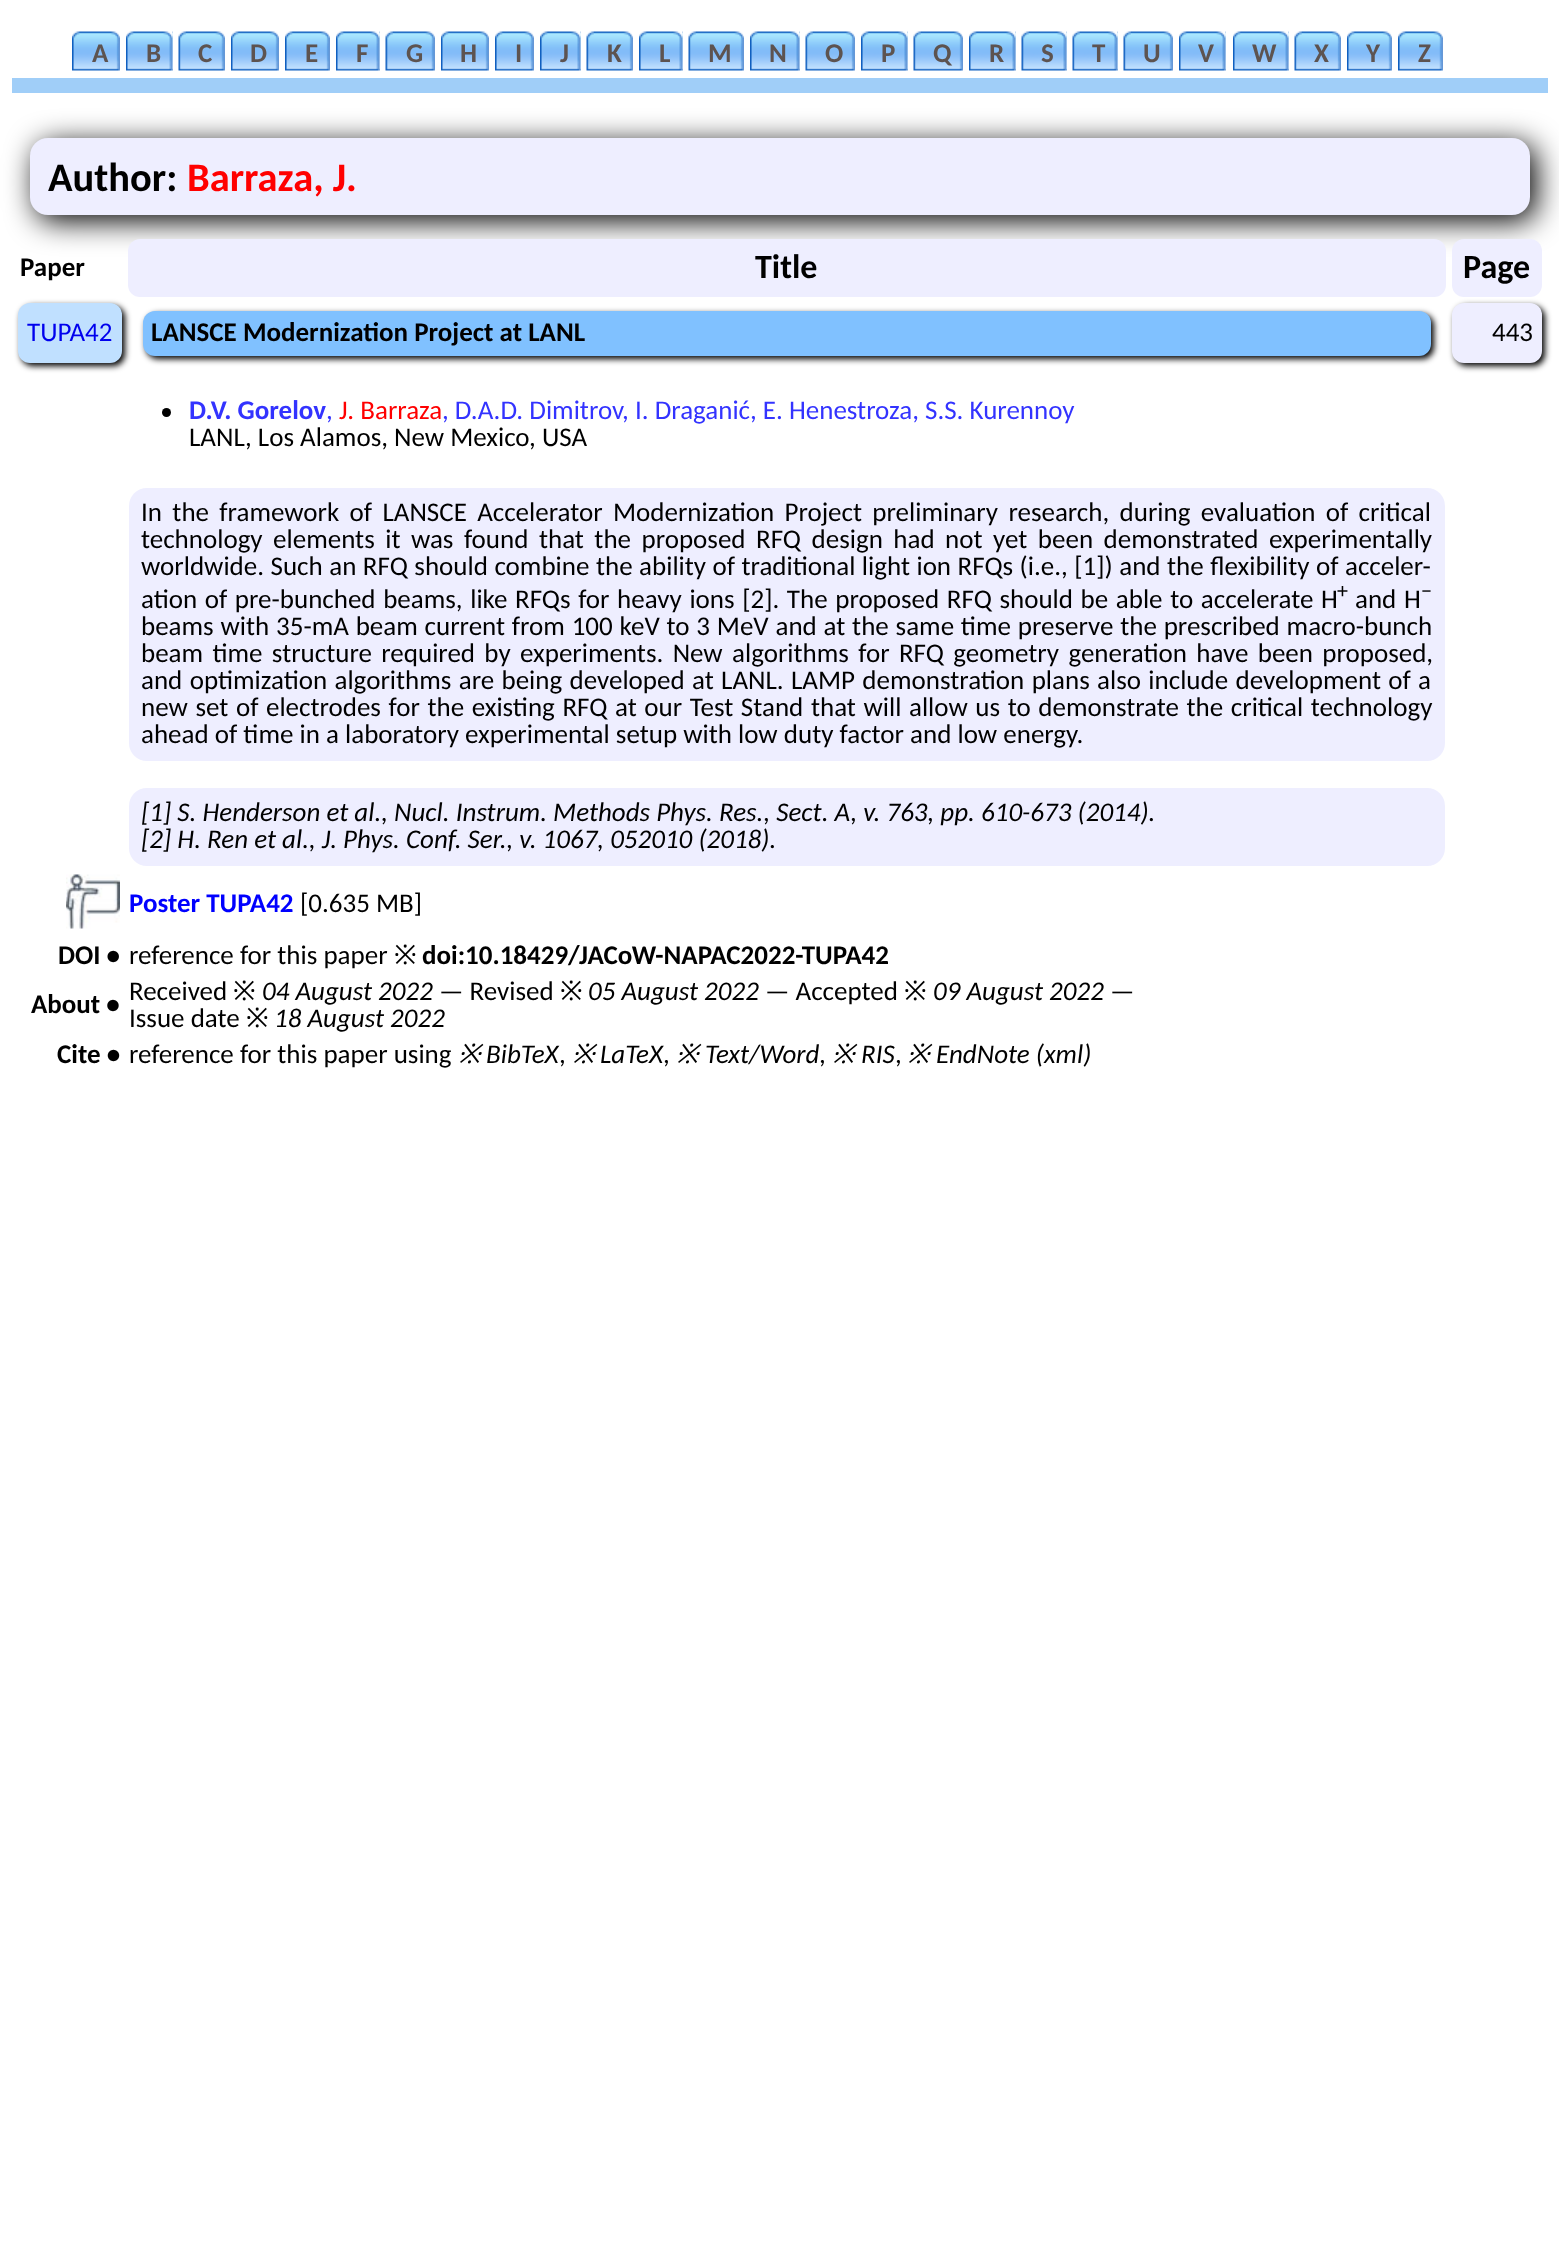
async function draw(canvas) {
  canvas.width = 1559
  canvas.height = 2267
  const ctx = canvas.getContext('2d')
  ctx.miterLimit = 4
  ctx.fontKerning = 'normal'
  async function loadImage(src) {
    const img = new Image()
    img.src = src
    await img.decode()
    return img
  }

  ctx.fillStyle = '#fff'
  ctx.fillRect(0, 0, 1559, 2267)
  ctx.fillStyle = '#a0cef8'
  ctx.fillRect(12, 78, 1536, 15)
  ctx.drawImage(await loadImage('image0.png'), 72, 31, 8, 40)
  ctx.drawImage(await loadImage('image1.png'), 79, 31, 41, 40)
  ctx.drawImage(await loadImage('image2.png'), 126, 31, 47, 40)
  ctx.drawImage(await loadImage('image3.png'), 133, 31, 40, 40)
  ctx.drawImage(await loadImage('image4.png'), 178, 31, 8, 40)
  ctx.drawImage(await loadImage('image5.png'), 186, 31, 39, 40)
  ctx.drawImage(await loadImage('image6.png'), 231, 31, 8, 40)
  ctx.drawImage(await loadImage('image7.png'), 238, 31, 41, 40)
  ctx.drawImage(await loadImage('image8.png'), 285, 31, 8, 40)
  ctx.drawImage(await loadImage('image9.png'), 292, 31, 38, 40)
  ctx.drawImage(await loadImage('image10.png'), 336, 31, 44, 40)
  ctx.drawImage(await loadImage('image11.png'), 343, 31, 37, 40)
  ctx.drawImage(await loadImage('image12.png'), 385, 31, 8, 40)
  ctx.drawImage(await loadImage('image13.png'), 393, 31, 42, 40)
  ctx.drawImage(await loadImage('image6.png'), 441, 31, 8, 40)
  ctx.drawImage(await loadImage('image7.png'), 448, 31, 41, 40)
  ctx.drawImage(await loadImage('image8.png'), 495, 31, 8, 40)
  ctx.drawImage(await loadImage('image14.png'), 502, 31, 32, 40)
  ctx.drawImage(await loadImage('image15.png'), 540, 31, 41, 40)
  ctx.drawImage(await loadImage('image16.png'), 547, 31, 34, 40)
  ctx.drawImage(await loadImage('image17.png'), 586, 31, 8, 40)
  ctx.drawImage(await loadImage('image18.png'), 594, 31, 39, 40)
  ctx.drawImage(await loadImage('image19.png'), 639, 31, 44, 40)
  ctx.drawImage(await loadImage('image20.png'), 646, 31, 37, 40)
  ctx.drawImage(await loadImage('image21.png'), 688, 31, 8, 40)
  ctx.drawImage(await loadImage('image22.png'), 696, 31, 48, 40)
  ctx.drawImage(await loadImage('image23.png'), 750, 31, 50, 40)
  ctx.drawImage(await loadImage('image24.png'), 757, 31, 43, 40)
  ctx.drawImage(await loadImage('image25.png'), 805, 31, 8, 40)
  ctx.drawImage(await loadImage('image26.png'), 813, 31, 42, 40)
  ctx.drawImage(await loadImage('image27.png'), 861, 31, 47, 40)
  ctx.drawImage(await loadImage('image28.png'), 868, 31, 40, 40)
  ctx.drawImage(await loadImage('image29.png'), 913, 31, 8, 40)
  ctx.drawImage(await loadImage('image30.png'), 921, 31, 42, 40)
  ctx.drawImage(await loadImage('image31.png'), 969, 31, 47, 40)
  ctx.drawImage(await loadImage('image32.png'), 976, 31, 40, 40)
  ctx.drawImage(await loadImage('image33.png'), 1021, 31, 46, 40)
  ctx.drawImage(await loadImage('image34.png'), 1029, 31, 38, 40)
  ctx.drawImage(await loadImage('image35.png'), 1072, 31, 46, 40)
  ctx.drawImage(await loadImage('image36.png'), 1080, 31, 38, 40)
  ctx.drawImage(await loadImage('image21.png'), 1123, 31, 8, 40)
  ctx.drawImage(await loadImage('image37.png'), 1131, 31, 42, 40)
  ctx.drawImage(await loadImage('image38.png'), 1179, 31, 47, 40)
  ctx.drawImage(await loadImage('image39.png'), 1186, 31, 40, 40)
  ctx.drawImage(await loadImage('image40.png'), 1233, 31, 56, 40)
  ctx.font = 'bold 27px Carlito'
  ctx.fillStyle = '#5d5350'
  ctx.fillText('A', 92, 62)
  ctx.fillText('B', 146, 62)
  ctx.fillText('C', 198, 62)
  ctx.fillText('D', 250, 62)
  ctx.fillText('E', 305, 62)
  ctx.fillText('F', 356, 62)
  ctx.fillText('G', 406, 62)
  ctx.fillText('H', 460, 62)
  ctx.fillText('I', 515, 62)
  ctx.fillText('J', 560, 62)
  ctx.fillText('K', 607, 62)
  ctx.fillText('L', 659, 62)
  ctx.fillText('M', 708, 62)
  ctx.fillText('N', 769, 62)
  ctx.fillText('O', 825, 62)
  ctx.fillText('P', 881, 62)
  ctx.fillText('Q', 933, 62)
  ctx.fillText('R', 989, 62)
  ctx.fillText('S', 1041, 62)
  ctx.fillText('T', 1092, 62)
  ctx.fillText('U', 1143, 62)
  ctx.fillText('V', 1198, 62)
  ctx.drawImage(await loadImage('image41.png'), 1240, 31, 49, 40)
  ctx.drawImage(await loadImage('image17.png'), 1294, 31, 8, 40)
  ctx.drawImage(await loadImage('image42.png'), 1302, 31, 39, 40)
  ctx.drawImage(await loadImage('image6.png'), 1347, 31, 8, 40)
  ctx.drawImage(await loadImage('image43.png'), 1354, 31, 38, 40)
  ctx.drawImage(await loadImage('image44.png'), 1398, 31, 8, 40)
  ctx.drawImage(await loadImage('image45.png'), 1405, 31, 38, 40)
  ctx.fillText('W', 1252, 62)
  ctx.fillText('X', 1314, 62)
  ctx.fillText('Y', 1366, 62)
  ctx.fillText('Z', 1418, 62)
  ctx.fillStyle = '#000'
  ctx.filter = 'blur(15px)'
  ctx.beginPath()
  ctx.roundRect(36, 144, 1500, 77, 18)
  ctx.fill()
  ctx.filter = 'none'
  ctx.fillStyle = '#eef'
  ctx.beginPath()
  ctx.roundRect(30, 138, 1500, 77, 18)
  ctx.fill()
  ctx.font = 'bold 40.5px Carlito'
  ctx.fillStyle = '#000'
  ctx.fillText('Author:', 48, 191)
  ctx.fillStyle = '#f00'
  ctx.fillText('Barraza, J.', 187, 191)
  ctx.font = 'bold 27px Carlito'
  ctx.fillStyle = '#000'
  ctx.fillText('Paper', 20, 276)
  ctx.fillStyle = '#eef'
  ctx.beginPath()
  ctx.roundRect(128, 239, 1318, 58, 12)
  ctx.fill()
  ctx.font = 'bold 34px Carlito'
  ctx.fillStyle = '#000'
  ctx.fillText('Title', 755, 278)
  ctx.fillStyle = '#eef'
  ctx.beginPath()
  ctx.roundRect(1452, 239, 90, 58, 12)
  ctx.fill()
  ctx.fillStyle = '#000'
  ctx.fillText('Page', 1463, 278)
  ctx.filter = 'blur(3px)'
  ctx.beginPath()
  ctx.roundRect(21, 306, 104, 60, 12)
  ctx.fill()
  ctx.filter = 'none'
  ctx.fillStyle = '#c0e0ff'
  ctx.beginPath()
  ctx.roundRect(18, 303, 104, 60, 12)
  ctx.fill()
  ctx.font = '27px Carlito'
  ctx.fillStyle = '#00e'
  ctx.fillText('TUPA42', 27, 341)
  ctx.fillStyle = '#000'
  ctx.filter = 'blur(3px)'
  ctx.beginPath()
  ctx.roundRect(146, 314, 1288, 45, 12)
  ctx.fill()
  ctx.filter = 'none'
  ctx.fillStyle = '#80c1ff'
  ctx.beginPath()
  ctx.roundRect(143, 311, 1288, 45, 12)
  ctx.fill()
  ctx.font = 'bold 27px Carlito'
  ctx.fillStyle = '#000'
  ctx.fillText('LANSCE Modernization Project at LANL', 151, 341)
  ctx.filter = 'blur(3px)'
  ctx.beginPath()
  ctx.roundRect(1455, 306, 90, 60, 12)
  ctx.fill()
  ctx.filter = 'none'
  ctx.fillStyle = '#eef'
  ctx.beginPath()
  ctx.roundRect(1452, 303, 90, 60, 12)
  ctx.fill()
  ctx.font = '27px Carlito'
  ctx.fillStyle = '#000'
  ctx.fillText('443', 1492, 341)
  ctx.beginPath()
  ctx.arc(166.5, 412.5, 4.5, 0, 2 * Math.PI)
  ctx.fill()
  ctx.font = 'bold 27px Carlito'
  ctx.fillStyle = '#33f'
  ctx.fillText('D.V. Gorelov', 189, 419)
  ctx.font = '27px Carlito'
  ctx.fillStyle = '#f00'
  ctx.fillText('J. Barraza', 339, 419)
  ctx.fillStyle = '#33f'
  ctx.fillText(', D.A.D. Dimitrov, I. Draganić, E. Henestroza, S.S. Kurennoy', 442, 419)
  ctx.fillText(',', 326, 419)
  ctx.fillStyle = '#000'
  ctx.fillText('LANL, Los Alamos, New Mexico, USA', 189, 446)
  ctx.fillStyle = '#eef'
  ctx.beginPath()
  ctx.roundRect(129, 488, 1316, 273, 18)
  ctx.fill()
  ctx.wordSpacing = '4.25px'
  ctx.fillStyle = '#000'
  ctx.fillText('In the framework of LANSCE Accelerator Modernization Project preliminary research, during evaluation of critical', 141, 521)
  ctx.wordSpacing = '4.4px'
  ctx.fillText('technology elements it was found that the proposed RFQ design had not yet been demonstrated experimentally', 141, 548)
  ctx.wordSpacing = '0.4px'
  ctx.fillText('worldwide. Such an RFQ should combine the ability of traditional light ion RFQs (i.e., [1]) and the flexibility of acceler-', 141, 575)
  ctx.wordSpacing = '1.5px'
  ctx.fillText('ation of pre-bunched beams, like RFQs for heavy ions [2]. The proposed RFQ should be able to accelerate H', 141, 608)
  ctx.wordSpacing = '0px'
  ctx.font = '22px Carlito'
  ctx.fillText('+', 1337, 598)
  ctx.wordSpacing = '1.5px'
  ctx.font = '27px Carlito'
  ctx.fillText('and H', 1355, 608)
  ctx.wordSpacing = '0px'
  ctx.font = '22px Carlito'
  ctx.fillText('−', 1421, 598)
  ctx.wordSpacing = '0.7px'
  ctx.font = '27px Carlito'
  ctx.fillText('beams with 35-mA beam current from 100 keV to 3 MeV and at the same time preserve the prescribed macro-bunch', 141, 635)
  ctx.wordSpacing = '3.25px'
  ctx.fillText('beam time structure required by experiments. New algorithms for RFQ geometry generation have been proposed,', 141, 662)
  ctx.wordSpacing = '1.25px'
  ctx.fillText('and optimization algorithms are being developed at LANL. LAMP demonstration plans also include development of a', 141, 689)
  ctx.wordSpacing = '1.5px'
  ctx.fillText('new set of electrodes for the existing RFQ at our Test Stand that will allow us to demonstrate the critical technology', 141, 716)
  ctx.wordSpacing = '0px'
  ctx.fillText('ahead of time in a laboratory experimental setup with low duty factor and low energy.', 141, 743)
  ctx.fillStyle = '#eef'
  ctx.beginPath()
  ctx.roundRect(129, 788, 1316, 78, 18)
  ctx.fill()
  ctx.font = 'italic 27px Carlito'
  ctx.fillStyle = '#000'
  ctx.fillText('[1] S. Henderson et al., Nucl. Instrum. Methods Phys. Res., Sect. A, v. 763, pp. 610-673 (2014).', 141, 821)
  ctx.fillText('[2] H. Ren et al., J. Phys. Conf. Ser., v. 1067, 052010 (2018).', 141, 848)
  ctx.drawImage(await loadImage('image46.png'), 66, 874, 54, 55)
  ctx.font = 'bold 27px Carlito'
  ctx.fillStyle = '#00f'
  ctx.fillText('Poster TUPA42', 129, 912)
  ctx.font = '27px Carlito'
  ctx.fillStyle = '#000'
  ctx.fillText('[0.635 MB]', 300, 912)
  ctx.font = 'bold 27px Carlito'
  ctx.fillText('DOI •', 58, 964)
  ctx.font = '27px Carlito'
  ctx.fillText('reference for this paper', 129, 964)
  ctx.font = '27px Noto Sans'
  ctx.fillText('※', 394, 964)
  ctx.font = 'bold 27px Carlito'
  ctx.fillText('doi:10.18429/JACoW-NAPAC2022-TUPA42', 422, 964)
  ctx.fillText('About •', 31, 1013)
  ctx.font = '27px Carlito'
  ctx.fillText('Received', 129, 1000)
  ctx.font = '27px Noto Sans'
  ctx.fillText('※', 233, 1000)
  ctx.font = 'italic 27px Carlito'
  ctx.fillText('04 August 2022', 262, 1000)
  ctx.font = '27px Carlito'
  ctx.fillText('— Revised', 439, 1000)
  ctx.font = '27px Noto Sans'
  ctx.fillText('※', 560, 1000)
  ctx.font = 'italic 27px Carlito'
  ctx.fillText('05 August 2022', 588, 1000)
  ctx.font = '27px Carlito'
  ctx.fillText('— Accepted', 765, 1000)
  ctx.font = '27px Noto Sans'
  ctx.fillText('※', 904, 1000)
  ctx.font = 'italic 27px Carlito'
  ctx.fillText('09 August 2022', 933, 1000)
  ctx.font = '27px Carlito'
  ctx.fillText('—', 1110, 1000)
  ctx.fillText('Issue date', 129, 1027)
  ctx.font = '27px Noto Sans'
  ctx.fillText('※', 246, 1027)
  ctx.font = 'italic 27px Carlito'
  ctx.fillText('18 August 2022', 274, 1027)
  ctx.font = 'bold 27px Carlito'
  ctx.fillText('Cite •', 57, 1063)
  ctx.font = '27px Carlito'
  ctx.fillText('reference for this paper using', 129, 1063)
  ctx.font = 'italic 27px Noto Sans'
  ctx.fillText('※', 458, 1063)
  ctx.font = 'italic 27px Carlito'
  ctx.fillText('BibTeX', 486, 1063)
  ctx.font = '27px Carlito'
  ctx.fillText(',', 559, 1063)
  ctx.font = 'italic 27px Noto Sans'
  ctx.fillText('※', 572, 1063)
  ctx.font = 'italic 27px Carlito'
  ctx.fillText('LaTeX', 600, 1063)
  ctx.font = '27px Carlito'
  ctx.fillText(',', 663, 1063)
  ctx.font = 'italic 27px Noto Sans'
  ctx.fillText('※', 676, 1063)
  ctx.font = 'italic 27px Carlito'
  ctx.fillText('Text/Word', 705, 1063)
  ctx.font = '27px Carlito'
  ctx.fillText(',', 819, 1063)
  ctx.font = 'italic 27px Noto Sans'
  ctx.fillText('※', 832, 1063)
  ctx.font = 'italic 27px Carlito'
  ctx.fillText('RIS', 861, 1063)
  ctx.font = '27px Carlito'
  ctx.fillText(',', 895, 1063)
  ctx.font = 'italic 27px Noto Sans'
  ctx.fillText('※', 907, 1063)
  ctx.font = 'italic 27px Carlito'
  ctx.fillText('EndNote (xml)', 936, 1063)
}

draw(document.querySelector('canvas'))
